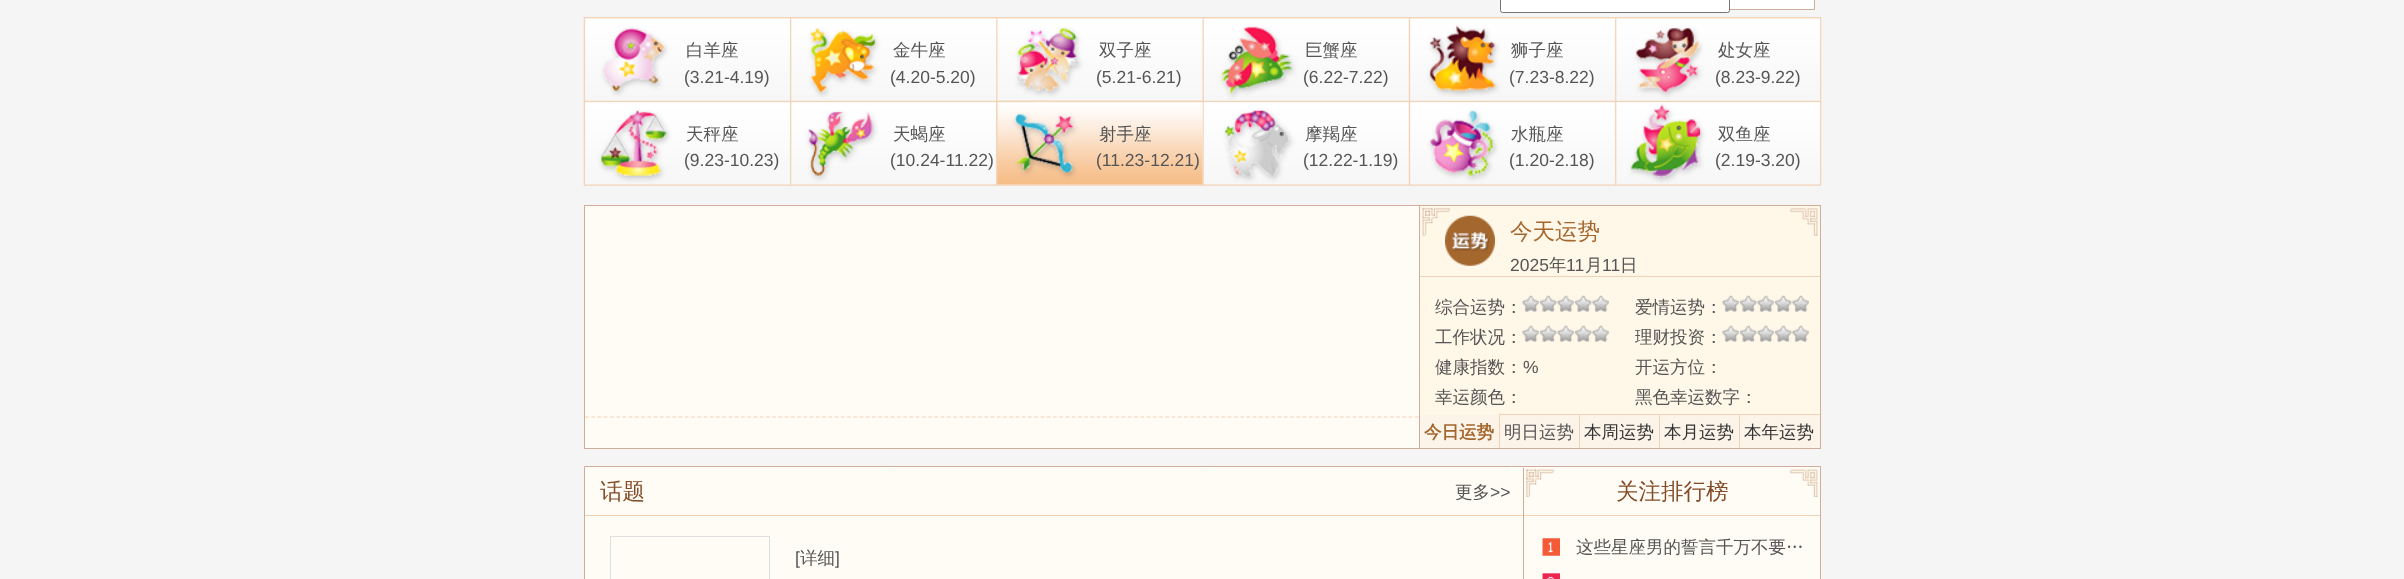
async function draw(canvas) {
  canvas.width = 2404
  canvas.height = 579
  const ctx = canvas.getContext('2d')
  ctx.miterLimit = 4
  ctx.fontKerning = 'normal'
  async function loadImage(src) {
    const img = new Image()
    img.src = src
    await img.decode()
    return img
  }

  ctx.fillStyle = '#f5f5f5'
  ctx.fillRect(0, 0, 2404, 579)
  ctx.fillStyle = '#fff'
  ctx.beginPath()
  ctx.roundRect(1500.5, -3.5, 229, 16, 2)
  ctx.fill()
  ctx.strokeStyle = '#767676'
  ctx.stroke()
  ctx.fillRect(1730, 0, 84, 9)
  ctx.fillStyle = '#d0ad9a'
  ctx.fillRect(1814, 0, 1, 10)
  ctx.fillRect(1730, 9, 85, 1)
  ctx.drawImage(await loadImage('image0.png'), 583, 17, 1239, 169)
  ctx.font = '500 17.5px WenQuanYi Zen Hei'
  ctx.fillStyle = '#555'
  ctx.fillText('白羊座', 686, 56)
  ctx.font = '17.5px Liberation Sans'
  ctx.fillText('(3.21-4.19)', 684, 83)
  ctx.font = '500 17.5px WenQuanYi Zen Hei'
  ctx.fillText('金牛座', 893, 56)
  ctx.font = '17.5px Liberation Sans'
  ctx.fillText('(4.20-5.20)', 890, 83)
  ctx.font = '500 17.5px WenQuanYi Zen Hei'
  ctx.fillText('双子座', 1099, 56)
  ctx.font = '17.5px Liberation Sans'
  ctx.fillText('(5.21-6.21)', 1096, 83)
  ctx.font = '500 17.5px WenQuanYi Zen Hei'
  ctx.fillText('巨蟹座', 1305, 56)
  ctx.font = '17.5px Liberation Sans'
  ctx.fillText('(6.22-7.22)', 1303, 83)
  ctx.font = '500 17.5px WenQuanYi Zen Hei'
  ctx.fillText('狮子座', 1511, 56)
  ctx.font = '17.5px Liberation Sans'
  ctx.fillText('(7.23-8.22)', 1509, 83)
  ctx.font = '500 17.5px WenQuanYi Zen Hei'
  ctx.fillText('处女座', 1718, 56)
  ctx.font = '17.5px Liberation Sans'
  ctx.fillText('(8.23-9.22)', 1715, 83)
  ctx.font = '500 17.5px WenQuanYi Zen Hei'
  ctx.fillText('天秤座', 686, 140)
  ctx.font = '17.5px Liberation Sans'
  ctx.fillText('(9.23-10.23)', 684, 166)
  ctx.font = '500 17.5px WenQuanYi Zen Hei'
  ctx.fillText('天蝎座', 893, 140)
  ctx.font = '17.5px Liberation Sans'
  ctx.fillText('(10.24-11.22)', 890, 166)
  ctx.drawImage(await loadImage('image1.png'), 996, 100, 207, 85)
  ctx.font = '500 17.5px WenQuanYi Zen Hei'
  ctx.fillText('射手座', 1099, 140)
  ctx.font = '17.5px Liberation Sans'
  ctx.fillText('(11.23-12.21)', 1096, 166)
  ctx.font = '500 17.5px WenQuanYi Zen Hei'
  ctx.fillText('摩羯座', 1305, 140)
  ctx.font = '17.5px Liberation Sans'
  ctx.fillText('(12.22-1.19)', 1303, 166)
  ctx.font = '500 17.5px WenQuanYi Zen Hei'
  ctx.fillText('水瓶座', 1511, 140)
  ctx.font = '17.5px Liberation Sans'
  ctx.fillText('(1.20-2.18)', 1509, 166)
  ctx.font = '500 17.5px WenQuanYi Zen Hei'
  ctx.fillText('双鱼座', 1718, 140)
  ctx.font = '17.5px Liberation Sans'
  ctx.fillText('(2.19-3.20)', 1715, 166)
  ctx.fillStyle = '#fffcf5'
  ctx.fillRect(585, 206, 834, 242)
  ctx.strokeStyle = '#d0ad9a'
  ctx.strokeRect(584.5, 205.5, 1236, 243)
  ctx.fillStyle = '#d0ad9a'
  ctx.fillRect(1419, 206, 1, 242)
  ctx.beginPath()
  ctx.moveTo(585, 417)
  ctx.lineTo(1419, 417)
  ctx.strokeStyle = '#f2d2b5'
  ctx.lineWidth = 1.2
  ctx.setLineDash([3.75, 2.49])
  ctx.stroke()
  ctx.fillStyle = '#fff7e8'
  ctx.fillRect(1420, 206, 400, 208)
  ctx.drawImage(await loadImage('image2.png'), 1445, 215, 50, 51)
  ctx.fillStyle = '#f2d2b5'
  ctx.fillRect(1420, 276, 400, 1)
  ctx.drawImage(await loadImage('image3.png'), 1422, 208, 28, 28)
  ctx.font = '500 22.5px WenQuanYi Zen Hei'
  ctx.fillStyle = '#a4672e'
  ctx.fillText('今天运势', 1510, 239)
  ctx.drawImage(await loadImage('image4.png'), 1790, 208, 28, 28)
  ctx.font = '17.5px Liberation Sans'
  ctx.fillStyle = '#555'
  ctx.fillText('2025', 1510, 271)
  ctx.font = '500 17.5px WenQuanYi Zen Hei'
  ctx.fillText('年', 1549, 271)
  ctx.font = '17.5px Liberation Sans'
  ctx.fillText('11', 1566, 271)
  ctx.font = '500 17.5px WenQuanYi Zen Hei'
  ctx.fillText('月', 1585, 271)
  ctx.font = '17.5px Liberation Sans'
  ctx.fillText('11', 1602, 271)
  ctx.font = '500 17.5px WenQuanYi Zen Hei'
  ctx.fillText('日', 1620, 271)
  ctx.fillText('综合运势：', 1435, 313)
  ctx.drawImage(await loadImage('image5.png'), 1522, 295, 87, 17)
  ctx.fillText('爱情运势：', 1635, 313)
  ctx.drawImage(await loadImage('image5.png'), 1722, 295, 87, 17)
  ctx.fillText('工作状况：', 1435, 343)
  ctx.drawImage(await loadImage('image5.png'), 1522, 325, 87, 17)
  ctx.fillText('理财投资：', 1635, 343)
  ctx.drawImage(await loadImage('image5.png'), 1722, 325, 87, 17)
  ctx.fillText('健康指数：', 1435, 373)
  ctx.font = '17.5px Liberation Sans'
  ctx.fillText('%', 1523, 373)
  ctx.font = '500 17.5px WenQuanYi Zen Hei'
  ctx.fillText('开运方位：', 1635, 373)
  ctx.fillText('幸运颜色：', 1435, 403)
  ctx.fillText('黑色幸运数字：', 1635, 403)
  ctx.fillStyle = '#fcf3e9'
  ctx.fillRect(1420, 415, 400, 33)
  ctx.fillStyle = '#f2d2b5'
  ctx.fillRect(1500, 414, 320, 1)
  ctx.fillStyle = '#fff7e8'
  ctx.fillRect(1420, 414, 80, 1)
  ctx.fillStyle = '#f2d2b5'
  ctx.fillRect(1499, 414, 1, 34)
  ctx.font = 'bold 17.5px WenQuanYi Zen Hei'
  ctx.fillStyle = '#a4672e'
  ctx.fillText('今日运势', 1424, 438)
  ctx.fillStyle = '#f2d2b5'
  ctx.fillRect(1579, 415, 1, 33)
  ctx.font = '500 17.5px WenQuanYi Zen Hei'
  ctx.fillStyle = '#555'
  ctx.fillText('明日运势', 1504, 438)
  ctx.fillStyle = '#f2d2b5'
  ctx.fillRect(1659, 415, 1, 33)
  ctx.fillStyle = '#333'
  ctx.fillText('本周运势', 1584, 438)
  ctx.fillStyle = '#f2d2b5'
  ctx.fillRect(1739, 415, 1, 33)
  ctx.fillStyle = '#333'
  ctx.fillText('本月运势', 1664, 438)
  ctx.fillText('本年运势', 1744, 438)
  ctx.fillStyle = '#fffcf5'
  ctx.beginPath()
  ctx.rect(584.5, 466.5, 1236, 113)
  ctx.fill()
  ctx.strokeStyle = '#d0ad9a'
  ctx.lineWidth = 1
  ctx.setLineDash([])
  ctx.stroke()
  ctx.fillStyle = '#f2d0ae'
  ctx.fillRect(585, 515, 938, 1)
  ctx.font = '500 22.5px WenQuanYi Zen Hei'
  ctx.fillStyle = '#834b27'
  ctx.fillText('话题', 600, 499)
  ctx.font = '500 17.5px WenQuanYi Zen Hei'
  ctx.fillStyle = '#555'
  ctx.fillText('更多', 1455, 498)
  ctx.font = '17.5px Liberation Sans'
  ctx.fillText('>>', 1490, 498)
  ctx.strokeStyle = '#dfdfdf'
  ctx.strokeRect(610.5, 536.5, 159, 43)
  ctx.fillText('[', 795, 564)
  ctx.font = '500 17.5px WenQuanYi Zen Hei'
  ctx.fillText('详细', 800, 564)
  ctx.font = '17.5px Liberation Sans'
  ctx.fillText(']', 835, 564)
  ctx.fillStyle = '#d0ad9a'
  ctx.fillRect(1523, 468, 1, 111)
  ctx.fillStyle = '#f2d2b5'
  ctx.fillRect(1524, 515, 296, 1)
  ctx.drawImage(await loadImage('image6.png'), 1526, 469, 28, 28)
  ctx.font = '500 22.5px WenQuanYi Zen Hei'
  ctx.fillStyle = '#834b27'
  ctx.fillText('关注排行榜', 1616, 499)
  ctx.drawImage(await loadImage('image7.png'), 1790, 469, 28, 28)
  ctx.drawImage(await loadImage('image8.png'), 1542, 538, 18, 41)
  ctx.font = '500 17.5px WenQuanYi Zen Hei'
  ctx.fillStyle = '#555'
  ctx.fillText('这些星座男的誓言千万不要…', 1576, 553)
}

draw(document.querySelector('canvas'))
